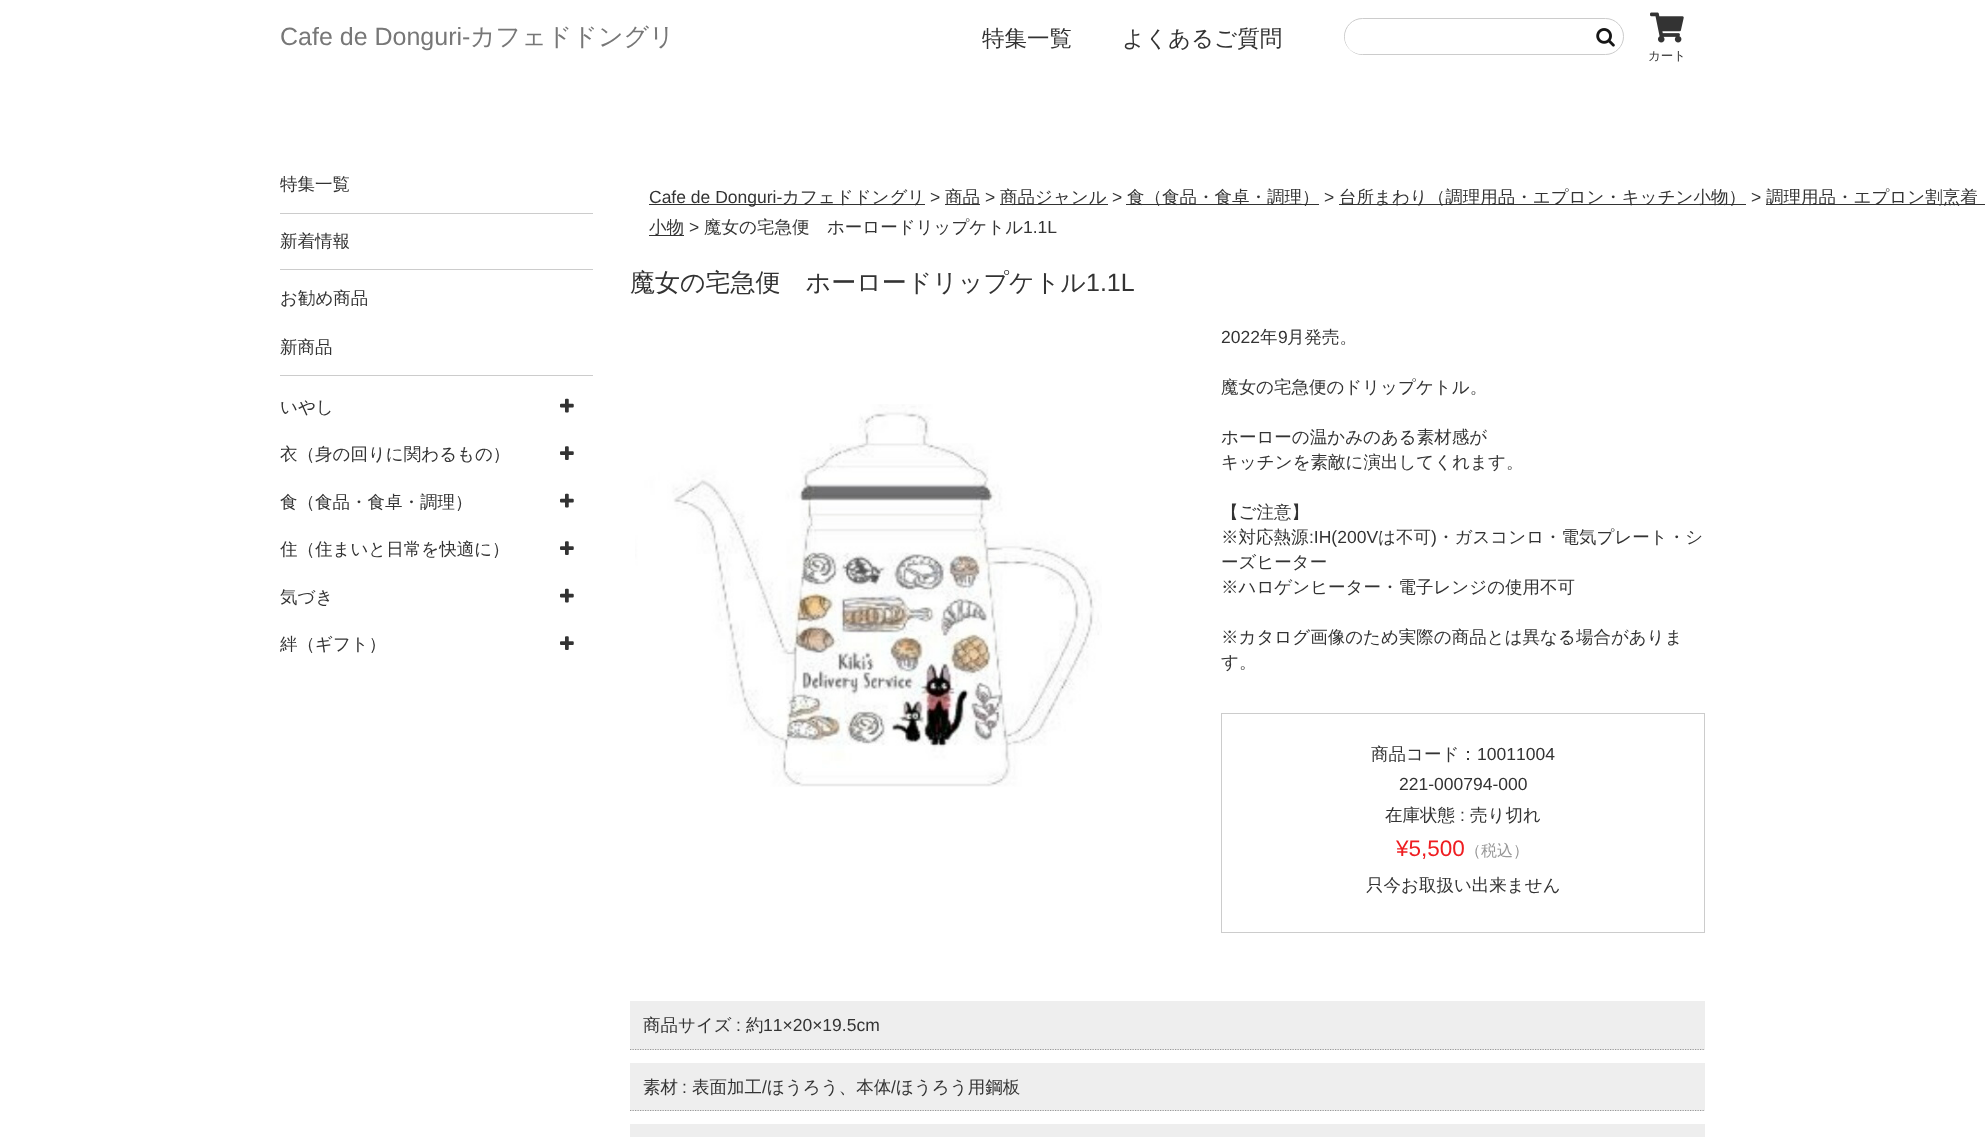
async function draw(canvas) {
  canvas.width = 1985
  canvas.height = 1137
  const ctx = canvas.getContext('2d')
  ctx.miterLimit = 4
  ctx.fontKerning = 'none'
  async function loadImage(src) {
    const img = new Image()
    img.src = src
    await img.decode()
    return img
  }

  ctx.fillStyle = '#fff'
  ctx.fillRect(0, 0, 1985, 1137)
  ctx.font = '25px Liberation Sans'
  ctx.fillStyle = '#777'
  ctx.fillText('Cafe de Donguri-', 280, 45)
  ctx.font = '500 25px WenQuanYi Zen Hei'
  ctx.fillText('カフェドドングリ', 470, 45)
  ctx.font = '500 22.5px WenQuanYi Zen Hei'
  ctx.fillStyle = '#333'
  ctx.fillText('特集一覧', 982, 46)
  ctx.fillText('よくあるご質問', 1122, 46)
  ctx.beginPath()
  ctx.roundRect(1344.5, 18.5, 279, 36, 18)
  ctx.strokeStyle = '#ccc'
  ctx.stroke()
  ctx.fillStyle = '#fff'
  ctx.beginPath()
  ctx.roundRect(1345, 21, 239, 33, 16.5)
  ctx.fill()
  ctx.drawImage(await loadImage('image0.png'), 1596, 28, 19, 19)
  ctx.drawImage(await loadImage('image1.png'), 1650, 12, 34, 31)
  ctx.font = '500 12.5px WenQuanYi Zen Hei'
  ctx.fillStyle = '#333'
  ctx.fillText('カート', 1648, 60)
  ctx.fillStyle = '#ccc'
  ctx.fillRect(280, 213, 313, 1)
  ctx.font = '500 17.5px WenQuanYi Zen Hei'
  ctx.fillStyle = '#333'
  ctx.fillText('特集一覧', 280, 190)
  ctx.fillStyle = '#ccc'
  ctx.fillRect(280, 269, 313, 1)
  ctx.fillStyle = '#333'
  ctx.fillText('新着情報', 280, 247)
  ctx.fillText('お勧め商品', 280, 304)
  ctx.fillStyle = '#ccc'
  ctx.fillRect(280, 375, 313, 1)
  ctx.fillStyle = '#333'
  ctx.fillText('新商品', 280, 353)
  ctx.fillText('いやし', 280, 413)
  ctx.drawImage(await loadImage('image2.png'), 560, 398, 14, 15)
  ctx.fillText('衣（身の回りに関わるもの）', 280, 460)
  ctx.drawImage(await loadImage('image3.png'), 560, 446, 14, 14)
  ctx.fillText('食（食品・食卓・調理）', 280, 508)
  ctx.drawImage(await loadImage('image2.png'), 560, 493, 14, 15)
  ctx.fillText('住（住まいと日常を快適に）', 280, 555)
  ctx.drawImage(await loadImage('image3.png'), 560, 541, 14, 14)
  ctx.fillText('気づき', 280, 603)
  ctx.drawImage(await loadImage('image2.png'), 560, 588, 14, 15)
  ctx.fillText('絆（ギフト）', 280, 650)
  ctx.drawImage(await loadImage('image3.png'), 560, 636, 14, 14)
  ctx.fillRect(649, 204, 276, 1)
  ctx.font = '17.5px Liberation Sans'
  ctx.fillText('Cafe de Donguri-', 649, 203)
  ctx.font = '500 17.5px WenQuanYi Zen Hei'
  ctx.fillText('カフェドドングリ', 782, 203)
  ctx.font = '17.5px Liberation Sans'
  ctx.fillText('>', 930, 203)
  ctx.fillRect(945, 204, 35, 1)
  ctx.font = '500 17.5px WenQuanYi Zen Hei'
  ctx.fillText('商品', 945, 203)
  ctx.font = '17.5px Liberation Sans'
  ctx.fillText('>', 985, 203)
  ctx.fillRect(1000, 204, 108, 1)
  ctx.font = '500 17.5px WenQuanYi Zen Hei'
  ctx.fillText('商品ジャンル', 1000, 203)
  ctx.font = '17.5px Liberation Sans'
  ctx.fillText('>', 1112, 203)
  ctx.fillRect(1126, 204, 193, 1)
  ctx.font = '500 17.5px WenQuanYi Zen Hei'
  ctx.fillText('食（食品・食卓・調理）', 1127, 203)
  ctx.font = '17.5px Liberation Sans'
  ctx.fillText('>', 1324, 203)
  ctx.fillRect(1339, 204, 407, 1)
  ctx.font = '500 17.5px WenQuanYi Zen Hei'
  ctx.fillText('台所まわり（調理用品・エプロン・キッチン小物）', 1339, 203)
  ctx.font = '17.5px Liberation Sans'
  ctx.fillText('>', 1751, 203)
  ctx.fillRect(1766, 204, 219, 1)
  ctx.font = '500 17.5px WenQuanYi Zen Hei'
  ctx.fillText('調理用品・エプロン割烹着', 1766, 203)
  ctx.fillRect(649, 235, 35, 1)
  ctx.fillText('小物', 649, 233)
  ctx.font = '17.5px Liberation Sans'
  ctx.fillText('>', 689, 233)
  ctx.font = '500 17.5px WenQuanYi Zen Hei'
  ctx.fillText('魔女の宅急便　ホーロードリップケトル', 704, 233)
  ctx.font = '17.5px Liberation Sans'
  ctx.fillText('1.1L', 1023, 233)
  ctx.font = '500 25px WenQuanYi Zen Hei'
  ctx.fillText('魔女の宅急便　ホーロードリップケトル', 630, 291)
  ctx.font = '25px Liberation Sans'
  ctx.fillText('1.1L', 1086, 291)
  ctx.drawImage(await loadImage('image4.png'), 635, 404, 467, 383)
  ctx.font = '17.5px Liberation Sans'
  ctx.fillText('2022', 1221, 343)
  ctx.font = '500 17.5px WenQuanYi Zen Hei'
  ctx.fillText('年', 1260, 343)
  ctx.font = '17.5px Liberation Sans'
  ctx.fillText('9', 1278, 343)
  ctx.font = '500 17.5px WenQuanYi Zen Hei'
  ctx.fillText('月発売。', 1287, 343)
  ctx.fillText('魔女の宅急便のドリップケトル。', 1221, 393)
  ctx.fillText('ホーローの温かみのある素材感が', 1221, 443)
  ctx.fillText('キッチンを素敵に演出してくれます。', 1221, 468)
  ctx.fillText('【ご注意】', 1221, 518)
  ctx.fillText('※対応熱源', 1221, 543)
  ctx.font = '17.5px Liberation Sans'
  ctx.fillText(':IH(200V', 1309, 543)
  ctx.font = '500 17.5px WenQuanYi Zen Hei'
  ctx.fillText('は不可', 1378, 543)
  ctx.font = '17.5px Liberation Sans'
  ctx.fillText(')', 1431, 543)
  ctx.font = '500 17.5px WenQuanYi Zen Hei'
  ctx.fillText('・ガスコンロ・電気プレート・シ', 1437, 543)
  ctx.fillText('ーズヒーター', 1221, 568)
  ctx.fillText('※ハロゲンヒーター・電子レンジの使用不可', 1221, 593)
  ctx.fillText('※カタログ画像のため実際の商品とは異なる場合がありま', 1221, 643)
  ctx.fillText('す。', 1221, 668)
  ctx.strokeRect(1221.5, 713.5, 483, 219)
  ctx.fillText('商品コード：', 1371, 760)
  ctx.font = '17.5px Liberation Sans'
  ctx.fillText('10011004', 1477, 760)
  ctx.fillText('221-000794-000', 1399, 790)
  ctx.font = '500 17.5px WenQuanYi Zen Hei'
  ctx.fillText('在庫状態', 1385, 821)
  ctx.font = '17.5px Liberation Sans'
  ctx.fillText(':', 1460, 821)
  ctx.font = '500 17.5px WenQuanYi Zen Hei'
  ctx.fillText('売り切れ', 1470, 821)
  ctx.font = '22.5px Liberation Sans'
  ctx.fillStyle = '#ef1d21'
  ctx.fillText('¥5,500', 1396, 856)
  ctx.font = '500 16px WenQuanYi Zen Hei'
  ctx.fillStyle = '#999'
  ctx.fillText('（税込）', 1465, 856)
  ctx.font = '500 17.5px WenQuanYi Zen Hei'
  ctx.fillStyle = '#333'
  ctx.fillText('只今お取扱い出来ません', 1366, 891)
  ctx.fillStyle = '#eee'
  ctx.fillRect(630, 1001, 1075, 49)
  ctx.beginPath()
  ctx.moveTo(630, 1049.5)
  ctx.lineTo(1705, 1049.5)
  ctx.strokeStyle = '#999'
  ctx.lineWidth = 1.2
  ctx.setLineDash([1.25, 1.25])
  ctx.stroke()
  ctx.fillStyle = '#333'
  ctx.fillText('商品サイズ', 643, 1031)
  ctx.font = '17.5px Liberation Sans'
  ctx.fillText(':', 736, 1031)
  ctx.font = '500 17.5px WenQuanYi Zen Hei'
  ctx.fillText('約', 746, 1031)
  ctx.font = '17.5px Liberation Sans'
  ctx.fillText('11×20×19.5cm', 763, 1031)
  ctx.fillStyle = '#eee'
  ctx.fillRect(630, 1063, 1075, 48)
  ctx.beginPath()
  ctx.moveTo(630, 1110.5)
  ctx.lineTo(1705, 1110.5)
  ctx.stroke()
  ctx.font = '500 17.5px WenQuanYi Zen Hei'
  ctx.fillStyle = '#333'
  ctx.fillText('素材', 643, 1093)
  ctx.font = '17.5px Liberation Sans'
  ctx.fillText(':', 682, 1093)
  ctx.font = '500 17.5px WenQuanYi Zen Hei'
  ctx.fillText('表面加工', 692, 1093)
  ctx.font = '17.5px Liberation Sans'
  ctx.fillText('/', 762, 1093)
  ctx.font = '500 17.5px WenQuanYi Zen Hei'
  ctx.fillText('ほうろう、本体', 767, 1093)
  ctx.font = '17.5px Liberation Sans'
  ctx.fillText('/', 891, 1093)
  ctx.font = '500 17.5px WenQuanYi Zen Hei'
  ctx.fillText('ほうろう用鋼板', 896, 1093)
  ctx.fillStyle = '#eee'
  ctx.fillRect(630, 1124, 1075, 13)
}

draw(document.querySelector('canvas'))
